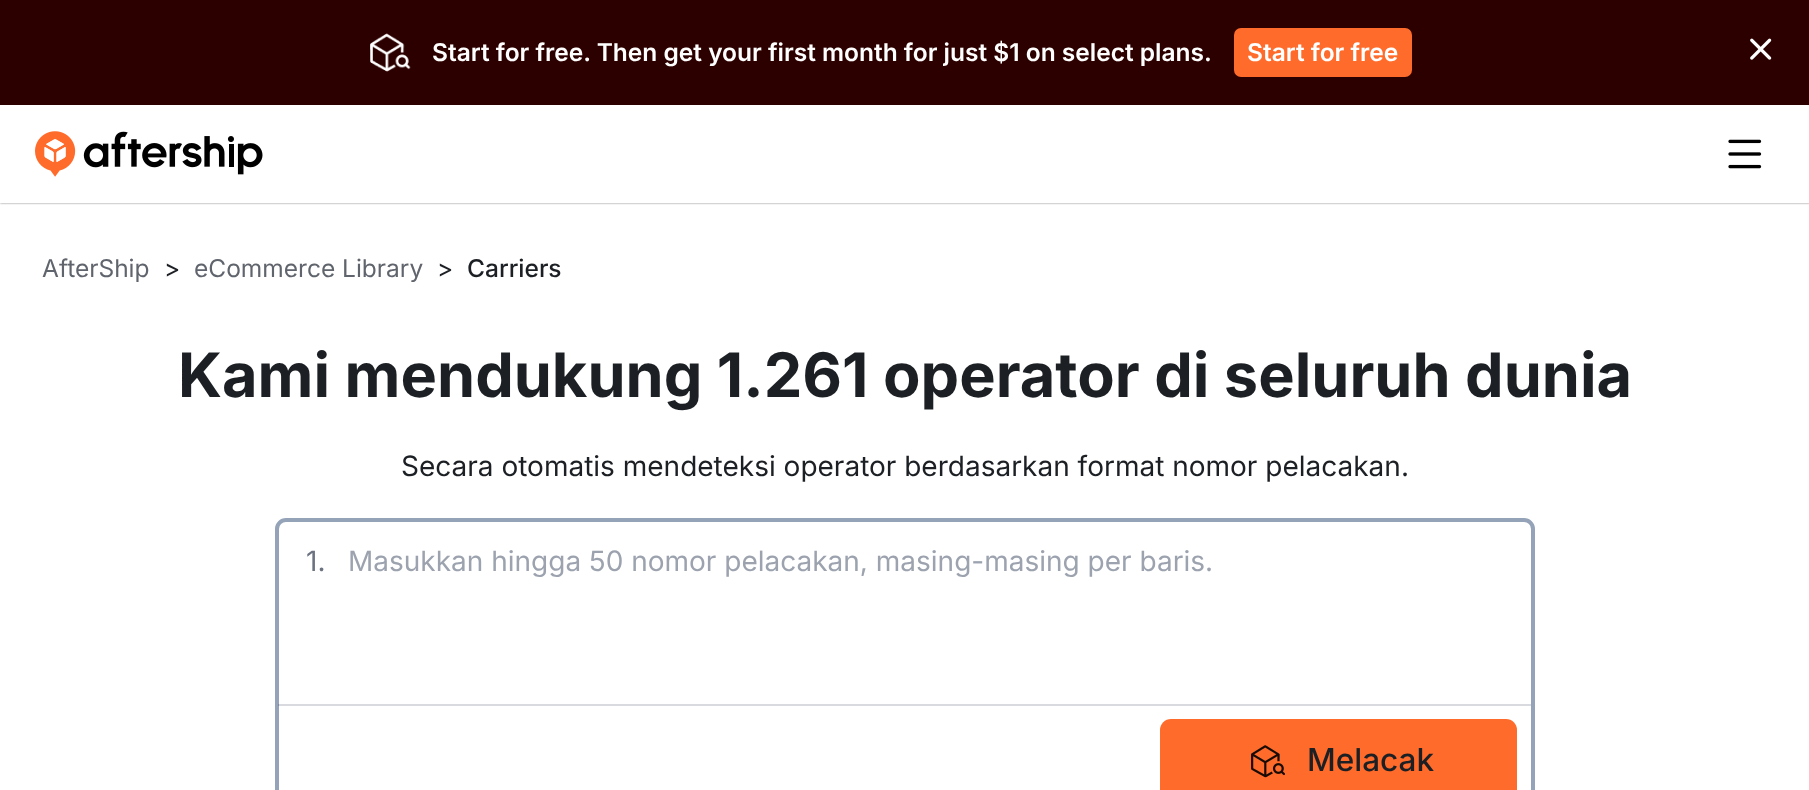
async function draw(canvas) {
  canvas.width = 1809
  canvas.height = 790
  const ctx = canvas.getContext('2d')
  ctx.miterLimit = 4
  ctx.fontKerning = 'normal'
  async function loadImage(src) {
    const img = new Image()
    img.src = src
    await img.decode()
    return img
  }

  ctx.fillStyle = '#fff'
  ctx.fillRect(0, 0, 1809, 790)
  ctx.save()
  ctx.beginPath()
  ctx.rect(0, 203, 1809, 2)
  ctx.clip()
  ctx.fillStyle = '#00000080'
  ctx.filter = 'blur(1px)'
  ctx.beginPath()
  ctx.rect(0, 105, 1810, 98)
  ctx.fill()
  ctx.filter = 'none'
  ctx.restore()
  ctx.fillStyle = '#2d0000'
  ctx.fillRect(0, 0, 1809, 105)
  ctx.drawImage(await loadImage('image0.png'), 370, 33, 41, 39)
  ctx.font = '600 24.5px Inter'
  ctx.fillStyle = '#fff'
  ctx.fillText('Start for free. Then get your first month for just $1 on select plans.', 432, 61)
  ctx.fillStyle = '#ff6b2b'
  ctx.beginPath()
  ctx.roundRect(1234, 28, 178, 49, 7)
  ctx.fill()
  ctx.fillStyle = '#fff'
  ctx.fillText('Start for free', 1247, 61)
  ctx.drawImage(await loadImage('image1.png'), 1750, 38, 22, 22)
  ctx.drawImage(await loadImage('image2.png'), 35, 131, 228, 46)
  ctx.drawImage(await loadImage('image3.png'), 1728, 139, 34, 30)
  ctx.font = '24.5px Inter'
  ctx.fillStyle = '#60646c'
  ctx.fillText('AfterShip', 42, 277)
  ctx.fillStyle = '#1c2024'
  ctx.fillText('>', 164, 277)
  ctx.fillStyle = '#60646c'
  ctx.fillText('eCommerce Library', 194, 277)
  ctx.fillStyle = '#1c2024'
  ctx.fillText('>', 437, 277)
  ctx.font = '500 24.5px Inter'
  ctx.fillText('Carriers', 467, 277)
  ctx.font = 'bold 61.25px Inter'
  ctx.fillText('Kami mendukung 1.261 operator di seluruh dunia', 178, 397)
  ctx.font = '28px Inter'
  ctx.fillText('Secara otomatis mendeteksi operator berdasarkan format nomor pelacakan.', 401, 476)
  ctx.beginPath()
  ctx.roundRect(277, 520, 1256, 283, 9)
  ctx.strokeStyle = '#94a3b8'
  ctx.lineWidth = 4
  ctx.stroke()
  ctx.fillStyle = '#6b7280'
  ctx.fillText('1.', 306, 571)
  ctx.fillStyle = '#9ca3af'
  ctx.fillText('Masukkan hingga 50 nomor pelacakan, masing-masing per baris.', 348, 571)
  ctx.fillStyle = '#00002f26'
  ctx.fillRect(278, 704, 1253, 2)
  ctx.fillStyle = '#ff6b2b'
  ctx.beginPath()
  ctx.roundRect(1160, 719, 357, 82, 11)
  ctx.fill()
  ctx.drawImage(await loadImage('image4.png'), 1251, 745, 34, 33)
  ctx.font = '500 31.5px Inter'
  ctx.fillStyle = '#1c2024'
  ctx.fillText('Melacak', 1307, 771)
}

draw(document.querySelector('canvas'))
